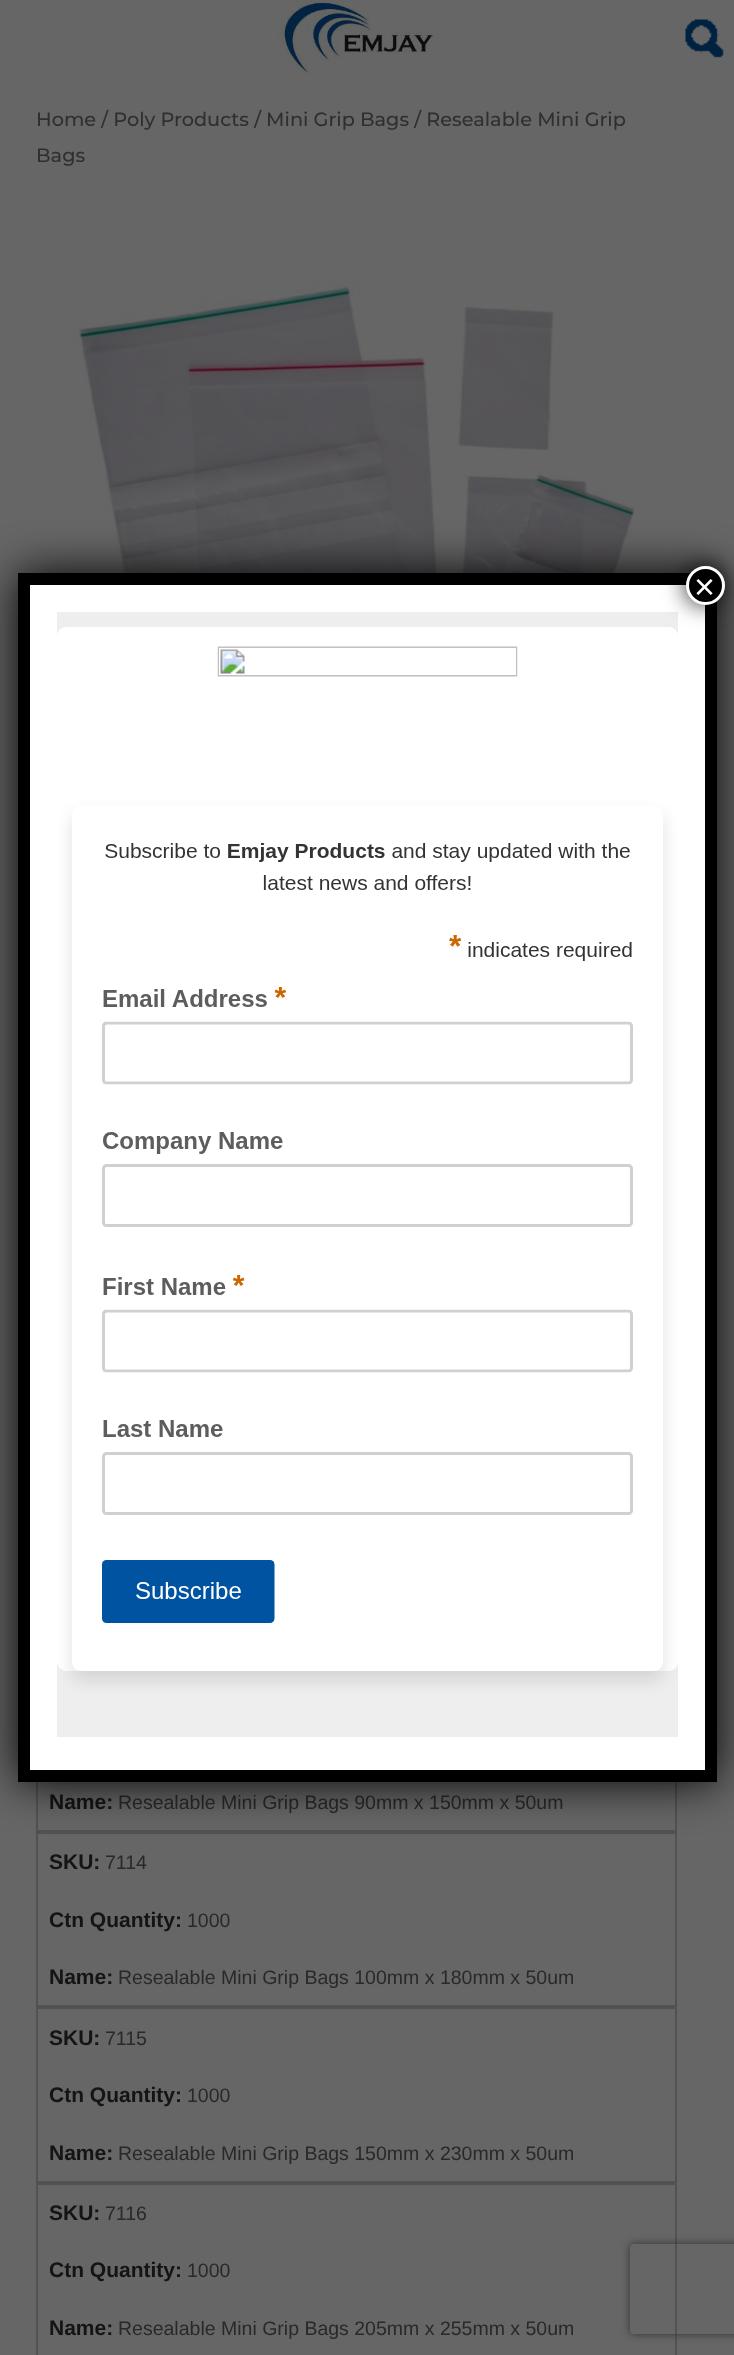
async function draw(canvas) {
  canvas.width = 734
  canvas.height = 2355
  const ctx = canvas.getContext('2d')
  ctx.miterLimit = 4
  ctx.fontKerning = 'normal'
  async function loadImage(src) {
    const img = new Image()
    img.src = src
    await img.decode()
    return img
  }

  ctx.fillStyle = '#666'
  ctx.fillRect(0, 0, 734, 2355)
  ctx.drawImage(await loadImage('image0.png'), 275, 0, 158, 74)
  ctx.drawImage(await loadImage('image1.png'), 685, 19, 39, 39)
  ctx.font = '500 19.3px Montserrat'
  ctx.fillStyle = '#2f2f2f'
  ctx.fillText('Home / Poly Products / Mini Grip Bags / Resealable Mini Grip', 36, 126)
  ctx.fillText('Bags', 36, 162)
  ctx.drawImage(await loadImage('image2.png'), 73, 282, 562, 291)
  ctx.strokeStyle = '#525252'
  ctx.lineWidth = 2
  ctx.strokeRect(37, 1657, 639, 174)
  ctx.font = 'bold 21px Liberation Sans'
  ctx.fillStyle = '#141414'
  ctx.fillText('Name:', 49, 1809)
  ctx.font = '19.5px Liberation Sans'
  ctx.fillStyle = '#292929'
  ctx.fillText('Resealable Mini Grip Bags 90mm x 150mm x 50um', 118, 1809)
  ctx.strokeRect(37, 1833, 639, 173)
  ctx.font = 'bold 21px Liberation Sans'
  ctx.fillStyle = '#141414'
  ctx.fillText('SKU:', 49, 1869)
  ctx.font = '19.5px Liberation Sans'
  ctx.fillStyle = '#292929'
  ctx.fillText('7114', 105, 1869)
  ctx.font = 'bold 21px Liberation Sans'
  ctx.fillStyle = '#141414'
  ctx.fillText('Ctn Quantity:', 49, 1927)
  ctx.font = '19.5px Liberation Sans'
  ctx.fillStyle = '#292929'
  ctx.fillText('1000', 187, 1927)
  ctx.font = 'bold 21px Liberation Sans'
  ctx.fillStyle = '#141414'
  ctx.fillText('Name:', 49, 1984)
  ctx.font = '19.5px Liberation Sans'
  ctx.fillStyle = '#292929'
  ctx.fillText('Resealable Mini Grip Bags 100mm x 180mm x 50um', 118, 1984)
  ctx.strokeRect(37, 2008, 639, 174)
  ctx.font = 'bold 21px Liberation Sans'
  ctx.fillStyle = '#141414'
  ctx.fillText('SKU:', 49, 2045)
  ctx.font = '19.5px Liberation Sans'
  ctx.fillStyle = '#292929'
  ctx.fillText('7115', 105, 2045)
  ctx.font = 'bold 21px Liberation Sans'
  ctx.fillStyle = '#141414'
  ctx.fillText('Ctn Quantity:', 49, 2102)
  ctx.font = '19.5px Liberation Sans'
  ctx.fillStyle = '#292929'
  ctx.fillText('1000', 187, 2102)
  ctx.font = 'bold 21px Liberation Sans'
  ctx.fillStyle = '#141414'
  ctx.fillText('Name:', 49, 2160)
  ctx.font = '19.5px Liberation Sans'
  ctx.fillStyle = '#292929'
  ctx.fillText('Resealable Mini Grip Bags 150mm x 230mm x 50um', 118, 2160)
  ctx.strokeRect(37, 2184, 639, 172)
  ctx.font = 'bold 21px Liberation Sans'
  ctx.fillStyle = '#141414'
  ctx.fillText('SKU:', 49, 2220)
  ctx.font = '19.5px Liberation Sans'
  ctx.fillStyle = '#292929'
  ctx.fillText('7116', 105, 2220)
  ctx.font = 'bold 21px Liberation Sans'
  ctx.fillStyle = '#141414'
  ctx.fillText('Ctn Quantity:', 49, 2277)
  ctx.font = '19.5px Liberation Sans'
  ctx.fillStyle = '#292929'
  ctx.fillText('1000', 187, 2277)
  ctx.font = 'bold 21px Liberation Sans'
  ctx.fillStyle = '#141414'
  ctx.fillText('Name:', 49, 2335)
  ctx.font = '19.5px Liberation Sans'
  ctx.fillStyle = '#292929'
  ctx.fillText('Resealable Mini Grip Bags 205mm x 255mm x 50um', 118, 2335)
  ctx.fillStyle = '#020202'
  ctx.filter = 'blur(22.5px)'
  ctx.beginPath()
  ctx.roundRect(18, 573, 699, 1209, 5)
  ctx.fill()
  ctx.filter = 'none'
  ctx.fillStyle = '#fff'
  ctx.fillRect(30, 585, 675, 1185)
  ctx.beginPath()
  ctx.moveTo(24, 579)
  ctx.lineTo(711, 579)
  ctx.lineTo(711, 1776)
  ctx.lineTo(24, 1776)
  ctx.closePath()
  ctx.strokeStyle = '#000'
  ctx.lineWidth = 12
  ctx.stroke()
  ctx.drawImage(await loadImage('image3.png'), 57, 612, 621, 1125)
  ctx.fillStyle = '#020202bf'
  ctx.filter = 'blur(11px)'
  ctx.beginPath()
  ctx.roundRect(684, 564, 42, 42, 21)
  ctx.fill()
  ctx.filter = 'none'
  ctx.fillStyle = '#000'
  ctx.beginPath()
  ctx.arc(705.5, 585.5, 18, 0, 2 * Math.PI)
  ctx.fill()
  ctx.strokeStyle = '#fff'
  ctx.lineWidth = 3
  ctx.stroke()
  ctx.font = '36px Liberation Sans'
  ctx.fillStyle = '#fff'
  ctx.fillText('×', 694, 599)
  ctx.save()
  ctx.beginPath()
  ctx.moveTo(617, 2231)
  ctx.lineTo(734, 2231)
  ctx.lineTo(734, 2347)
  ctx.lineTo(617, 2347)
  ctx.closePath()
  ctx.moveTo(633, 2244)
  ctx.lineTo(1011, 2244)
  ctx.bezierCurveTo(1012.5, 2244, 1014, 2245.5, 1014, 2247)
  ctx.lineTo(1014, 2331)
  ctx.bezierCurveTo(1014, 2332.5, 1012.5, 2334, 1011, 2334)
  ctx.lineTo(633, 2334)
  ctx.bezierCurveTo(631.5, 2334, 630, 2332.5, 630, 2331)
  ctx.lineTo(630, 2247)
  ctx.bezierCurveTo(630, 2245.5, 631.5, 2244, 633, 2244)
  ctx.closePath()
  ctx.clip('evenodd')
  ctx.fillStyle = '#333'
  ctx.filter = 'blur(4px)'
  ctx.beginPath()
  ctx.roundRect(630, 2244, 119, 90, 3)
  ctx.fill()
  ctx.filter = 'none'
  ctx.restore()
}

draw(document.querySelector('canvas'))
